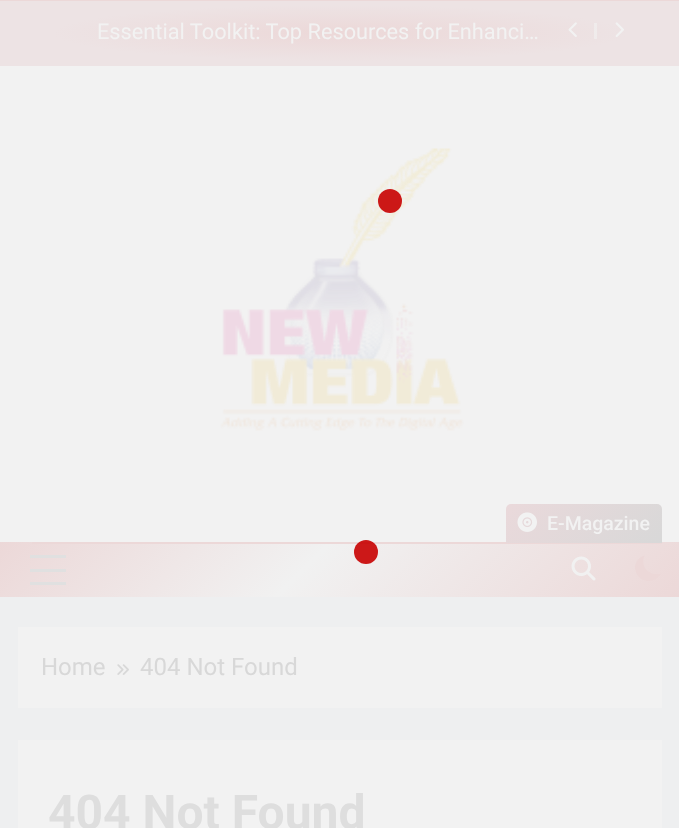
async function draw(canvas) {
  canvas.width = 679
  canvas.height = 828
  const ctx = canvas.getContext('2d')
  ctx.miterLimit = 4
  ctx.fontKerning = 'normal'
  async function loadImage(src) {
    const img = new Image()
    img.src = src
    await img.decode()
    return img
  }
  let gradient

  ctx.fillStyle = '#eeeff0'
  ctx.fillRect(0, 0, 679, 828)
  gradient = ctx.createRadialGradient(340, 337.02, 0, 340, 337.02, 480)
  gradient.addColorStop(0, '#ecd8d8')
  gradient.addColorStop(0.6, '#ede3e4')
  ctx.fillStyle = gradient
  ctx.beginPath()
  ctx.rect(0, 1, 679, 65)
  ctx.save()
  ctx.clip()
  ctx.scale(1, 47 / 480)
  ctx.fillRect(0, 0, 679, 8457)
  ctx.restore()
  gradient = ctx.createRadialGradient(340, 337.02, 0, 340, 337.02, 480)
  gradient.addColorStop(0, '#efe7e7')
  gradient.addColorStop(0.6, '#f0ecec')
  ctx.fillStyle = gradient
  ctx.beginPath()
  ctx.rect(594, 23, 3, 16)
  ctx.save()
  ctx.clip()
  ctx.scale(1, 47 / 480)
  ctx.fillRect(0, 0, 679, 8457)
  ctx.restore()
  ctx.font = '21.75px Roboto'
  ctx.fillStyle = '#f2f2f2'
  ctx.fillText('Essential Toolkit: Top Resources for Enhanci…', 97, 39)
  ctx.drawImage(await loadImage('image0.png'), 568, 22, 9, 15)
  ctx.drawImage(await loadImage('image1.png'), 615, 22, 9, 15)
  ctx.fillRect(0, 66, 679, 476)
  ctx.drawImage(await loadImage('image2.png'), 220, 148, 244, 283)
  gradient = ctx.createLinearGradient(156, 386, 524, 753)
  gradient.addColorStop(0, '#ecd8d8')
  gradient.addColorStop(0.45, '#f1f1f1')
  gradient.addColorStop(1, '#ecd8d8')
  ctx.fillStyle = gradient
  ctx.fillRect(0, 542, 679, 55)
  ctx.fillStyle = '#ecd8d8'
  ctx.fillRect(32, 542, 630, 2)
  gradient = ctx.createLinearGradient(535, 475, 632, 572)
  gradient.addColorStop(0, '#ead9db')
  gradient.addColorStop(1, '#d8d8d8')
  ctx.fillStyle = gradient
  ctx.beginPath()
  ctx.roundRect(506, 504, 156, 39, [5, 5, 0, 0])
  ctx.fill()
  ctx.drawImage(await loadImage('image3.png'), 517, 512, 20, 20)
  ctx.font = '500 19.5px Roboto'
  ctx.fillStyle = '#f2f2f2'
  ctx.fillText('E-Magazine', 547, 530)
  ctx.fillStyle = '#e0e0e0'
  ctx.fillRect(30, 555, 36, 3)
  ctx.fillRect(30, 569, 36, 3)
  ctx.fillRect(30, 582, 36, 3)
  ctx.drawImage(await loadImage('image4.png'), 571, 556, 25, 25)
  ctx.fillStyle = '#ecd8d8'
  ctx.beginPath()
  ctx.moveTo(661, 573.5)
  ctx.bezierCurveTo(649.5, 576.5, 639.5, 567, 644.5, 555.5)
  ctx.bezierCurveTo(641, 556.5, 638, 559, 636.5, 562)
  ctx.bezierCurveTo(635, 564.5, 634.5, 567.5, 635.5, 570.5)
  ctx.bezierCurveTo(638, 583, 655.5, 584.5, 661, 573.5)
  ctx.closePath()
  ctx.fill()
  ctx.fillStyle = '#c80000e6'
  ctx.beginPath()
  ctx.arc(390, 201, 12, 0, 2 * Math.PI)
  ctx.fill()
  ctx.beginPath()
  ctx.arc(366, 552, 12, 0, 2 * Math.PI)
  ctx.fill()
  ctx.fillStyle = '#f2f2f2'
  ctx.fillRect(18, 627, 644, 81)
  ctx.font = '24px Roboto'
  ctx.fillStyle = '#d8d8d8'
  ctx.fillText('Home', 41, 675)
  ctx.drawImage(await loadImage('image5.png'), 117, 664, 12, 11)
  ctx.fillText('404 Not Found', 140, 675)
  ctx.fillStyle = '#f2f2f2'
  ctx.fillRect(18, 740, 644, 88)
  ctx.fillStyle = '#ecd8d8'
  ctx.fillRect(0, 0, 679, 1)
  ctx.font = 'bold 48px Roboto'
  ctx.fillStyle = '#dedede'
  ctx.fillText('404 Not Found', 48, 829)
}

draw(document.querySelector('canvas'))
